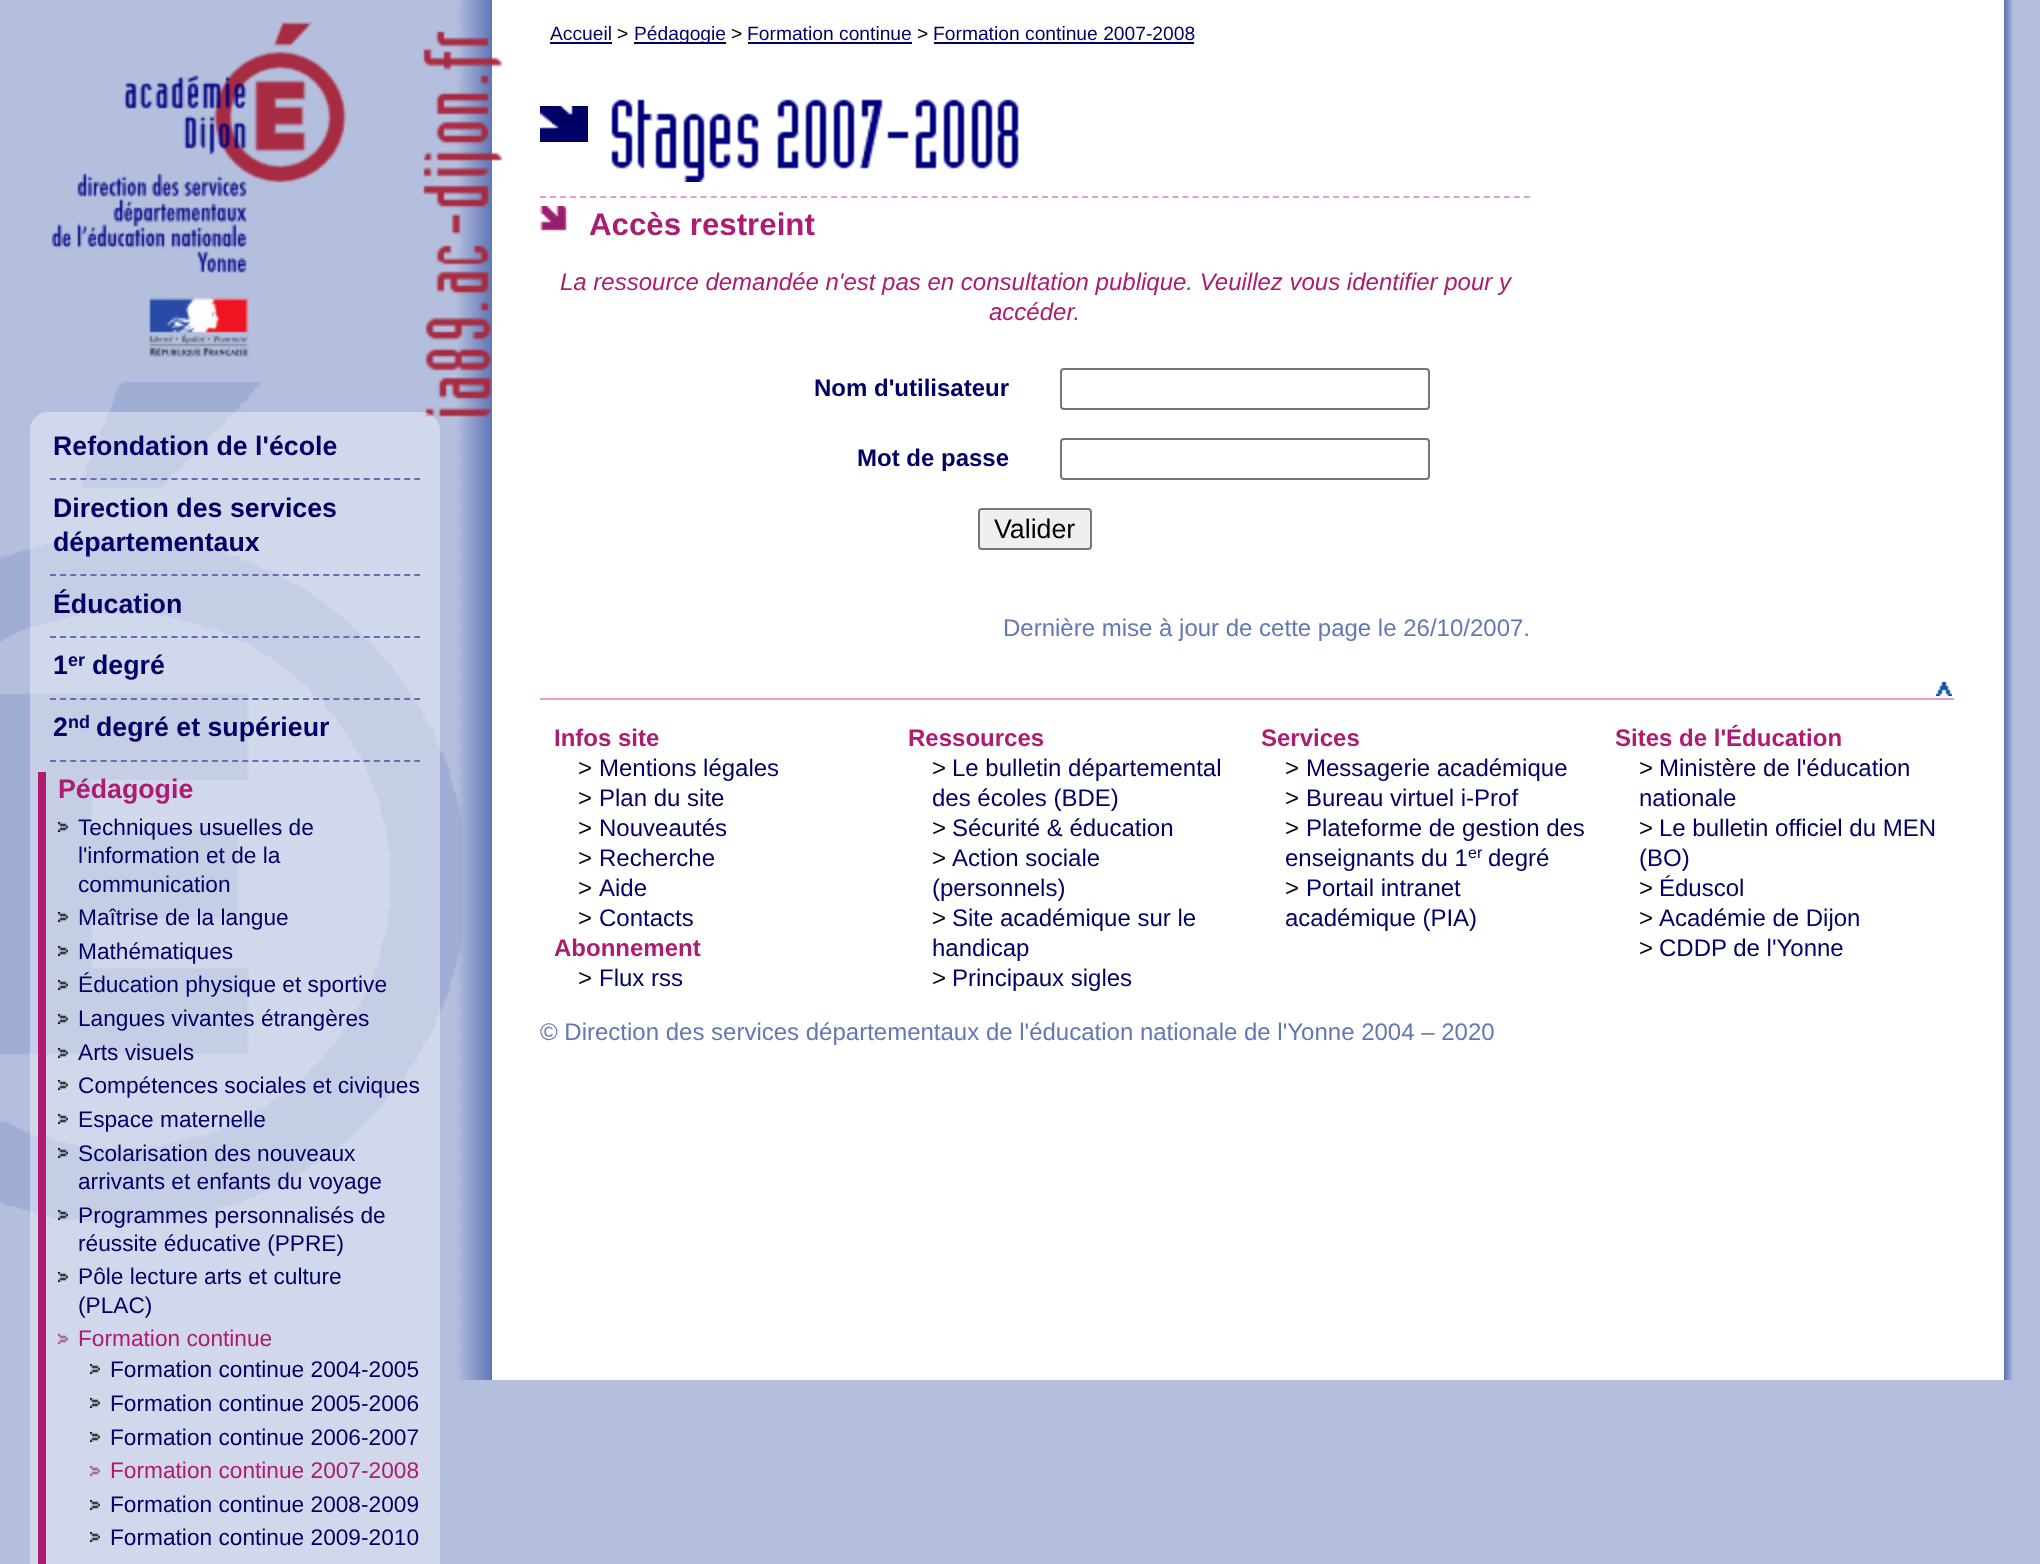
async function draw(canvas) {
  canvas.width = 2040
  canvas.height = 1564
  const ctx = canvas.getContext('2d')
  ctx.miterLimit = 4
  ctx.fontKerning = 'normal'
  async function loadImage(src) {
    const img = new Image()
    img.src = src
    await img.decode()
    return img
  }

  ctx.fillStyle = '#b4bfde'
  ctx.fillRect(0, 0, 2040, 1564)
  ctx.drawImage(await loadImage('image0.png'), 2004, 0, 9, 1380)
  ctx.drawImage(await loadImage('image9.png'), 420, 0, 72, 1380)
  ctx.fillStyle = '#fff'
  ctx.fillRect(492, 0, 1512, 1380)
  ctx.drawImage(await loadImage('image10.png'), 423, 31, 80, 386)
  ctx.drawImage(await loadImage('image1.png'), 0, 381, 463, 844)
  ctx.drawImage(await loadImage('image2.png'), 51, 22, 296, 337)
  ctx.drawImage(await loadImage('image3.png'), 30, 412, 410, 1152)
  ctx.beginPath()
  ctx.moveTo(50, 479)
  ctx.lineTo(420, 479)
  ctx.strokeStyle = '#5d73b3'
  ctx.lineWidth = 2
  ctx.setLineDash([6, 4.12])
  ctx.stroke()
  ctx.font = 'bold 26.75px Liberation Sans'
  ctx.fillStyle = '#006'
  ctx.fillText('Refondation de l\'école', 53, 455)
  ctx.beginPath()
  ctx.moveTo(50, 575)
  ctx.lineTo(420, 575)
  ctx.stroke()
  ctx.fillText('Direction des services', 53, 517)
  ctx.fillText('départementaux', 53, 551)
  ctx.beginPath()
  ctx.moveTo(50, 637)
  ctx.lineTo(420, 637)
  ctx.stroke()
  ctx.fillText('Éducation', 53, 613)
  ctx.beginPath()
  ctx.moveTo(50, 699)
  ctx.lineTo(420, 699)
  ctx.stroke()
  ctx.fillText('1', 53, 674)
  ctx.font = 'bold 18px Liberation Sans'
  ctx.fillText('er', 68, 666)
  ctx.font = 'bold 26.75px Liberation Sans'
  ctx.fillText('degré', 92, 674)
  ctx.beginPath()
  ctx.moveTo(50, 761)
  ctx.lineTo(420, 761)
  ctx.stroke()
  ctx.fillText('2', 53, 736)
  ctx.font = 'bold 18px Liberation Sans'
  ctx.fillText('nd', 68, 728)
  ctx.font = 'bold 26.75px Liberation Sans'
  ctx.fillText('degré et supérieur', 96, 736)
  ctx.fillStyle = '#ad1c72'
  ctx.fillRect(38, 772, 8, 792)
  ctx.fillText('Pédagogie', 58, 798)
  ctx.drawImage(await loadImage('image4.png'), 58, 822, 10, 10)
  ctx.font = '22.7px Liberation Sans'
  ctx.fillStyle = '#006'
  ctx.fillText('Techniques usuelles de', 78, 835)
  ctx.fillText('l\'information et de la', 78, 863)
  ctx.fillText('communication', 78, 892)
  ctx.drawImage(await loadImage('image4.png'), 58, 912, 10, 10)
  ctx.fillText('Maîtrise de la langue', 78, 925)
  ctx.drawImage(await loadImage('image4.png'), 58, 946, 10, 10)
  ctx.fillText('Mathématiques', 78, 959)
  ctx.drawImage(await loadImage('image4.png'), 58, 980, 10, 10)
  ctx.fillText('Éducation physique et sportive', 78, 992)
  ctx.drawImage(await loadImage('image4.png'), 58, 1014, 10, 10)
  ctx.fillText('Langues vivantes étrangères', 78, 1026)
  ctx.drawImage(await loadImage('image5.png'), 58, 1048, 10, 10)
  ctx.fillText('Arts visuels', 78, 1060)
  ctx.drawImage(await loadImage('image6.png'), 58, 1080, 10, 10)
  ctx.fillText('Compétences sociales et civiques', 78, 1093)
  ctx.drawImage(await loadImage('image6.png'), 58, 1114, 10, 10)
  ctx.fillText('Espace maternelle', 78, 1127)
  ctx.drawImage(await loadImage('image4.png'), 58, 1148, 10, 10)
  ctx.fillText('Scolarisation des nouveaux', 78, 1161)
  ctx.fillText('arrivants et enfants du voyage', 78, 1189)
  ctx.drawImage(await loadImage('image7.png'), 58, 1210, 10, 10)
  ctx.fillText('Programmes personnalisés de', 78, 1223)
  ctx.fillText('réussite éducative (PPRE)', 78, 1251)
  ctx.drawImage(await loadImage('image6.png'), 58, 1272, 10, 10)
  ctx.fillText('Pôle lecture arts et culture', 78, 1284)
  ctx.fillText('(PLAC)', 78, 1313)
  ctx.drawImage(await loadImage('image8.png'), 58, 1334, 10, 10)
  ctx.fillStyle = '#ad1c72'
  ctx.fillText('Formation continue', 78, 1346)
  ctx.drawImage(await loadImage('image6.png'), 90, 1364, 10, 10)
  ctx.fillStyle = '#006'
  ctx.fillText('Formation continue 2004-2005', 110, 1377)
  ctx.drawImage(await loadImage('image6.png'), 90, 1398, 10, 10)
  ctx.fillText('Formation continue 2005-2006', 110, 1411)
  ctx.drawImage(await loadImage('image6.png'), 90, 1432, 10, 10)
  ctx.fillText('Formation continue 2006-2007', 110, 1445)
  ctx.drawImage(await loadImage('image8.png'), 90, 1466, 10, 10)
  ctx.fillStyle = '#ad1c72'
  ctx.fillText('Formation continue 2007-2008', 110, 1478)
  ctx.drawImage(await loadImage('image6.png'), 90, 1500, 10, 10)
  ctx.fillStyle = '#006'
  ctx.fillText('Formation continue 2008-2009', 110, 1512)
  ctx.drawImage(await loadImage('image6.png'), 90, 1532, 10, 10)
  ctx.fillText('Formation continue 2009-2010', 110, 1545)
  ctx.font = '19.25px Liberation Sans'
  ctx.fillText('Accueil', 550, 40)
  ctx.fillRect(550, 42, 62, 2)
  ctx.fillStyle = '#000'
  ctx.fillText('>', 617, 40)
  ctx.fillStyle = '#006'
  ctx.fillRect(634, 42, 92, 2)
  ctx.fillText('Pédagogie', 634, 40)
  ctx.fillStyle = '#000'
  ctx.fillText('>', 731, 40)
  ctx.fillStyle = '#006'
  ctx.fillText('Formation continue', 747, 40)
  ctx.fillRect(748, 42, 164, 2)
  ctx.fillStyle = '#000'
  ctx.fillText('>', 917, 40)
  ctx.fillStyle = '#006'
  ctx.fillText('Formation continue 2007-2008', 933, 40)
  ctx.fillRect(934, 42, 260, 2)
  ctx.drawImage(await loadImage('image11.png'), 540, 106, 48, 36)
  ctx.drawImage(await loadImage('image12.png'), 611, 99, 408, 83)
  ctx.beginPath()
  ctx.moveTo(540, 197)
  ctx.lineTo(1530, 197)
  ctx.strokeStyle = '#dda0dd'
  ctx.setLineDash([6, 4.04])
  ctx.stroke()
  ctx.drawImage(await loadImage('image13.png'), 540, 206, 27, 25)
  ctx.font = 'bold 31.25px Liberation Sans'
  ctx.fillStyle = '#ad1c72'
  ctx.fillText('Accès restreint', 589, 235)
  ctx.font = 'italic 24px Liberation Sans'
  ctx.fillText('La ressource demandée n\'est pas en consultation publique. Veuillez vous identifier pour y', 560, 290)
  ctx.fillText('accéder.', 989, 320)
  ctx.font = 'bold 24px Liberation Sans'
  ctx.fillStyle = '#006'
  ctx.fillText('Nom d\'utilisateur', 814, 396)
  ctx.beginPath()
  ctx.roundRect(1061, 369, 368, 40, 3)
  ctx.strokeStyle = '#767676'
  ctx.setLineDash([])
  ctx.stroke()
  ctx.fillText('Mot de passe', 857, 466)
  ctx.beginPath()
  ctx.roundRect(1061, 439, 368, 40, 3)
  ctx.stroke()
  ctx.fillStyle = '#efefef'
  ctx.beginPath()
  ctx.roundRect(979, 509, 112, 40, 3)
  ctx.fill()
  ctx.stroke()
  ctx.font = '26.75px Liberation Sans'
  ctx.fillStyle = '#000'
  ctx.fillText('Valider', 994, 538)
  ctx.font = '24px Liberation Sans'
  ctx.fillStyle = '#6278b5'
  ctx.fillText('Dernière mise à jour de cette page le 26/10/2007.', 1003, 636)
  ctx.fillStyle = '#eb9bcb'
  ctx.fillRect(540, 698, 1414, 2)
  ctx.drawImage(await loadImage('image14.png'), 1936, 682, 16, 14)
  ctx.font = 'bold 24px Liberation Sans'
  ctx.fillStyle = '#ad1c72'
  ctx.fillText('Infos site', 554, 746)
  ctx.font = '24px Liberation Sans'
  ctx.fillStyle = '#000'
  ctx.fillText('>', 578, 776)
  ctx.fillStyle = '#006'
  ctx.fillText('Mentions légales', 599, 776)
  ctx.fillStyle = '#000'
  ctx.fillText('>', 578, 806)
  ctx.fillStyle = '#006'
  ctx.fillText('Plan du site', 599, 806)
  ctx.fillStyle = '#000'
  ctx.fillText('>', 578, 836)
  ctx.fillStyle = '#006'
  ctx.fillText('Nouveautés', 599, 836)
  ctx.fillStyle = '#000'
  ctx.fillText('>', 578, 866)
  ctx.fillStyle = '#006'
  ctx.fillText('Recherche', 599, 866)
  ctx.fillStyle = '#000'
  ctx.fillText('>', 578, 896)
  ctx.fillStyle = '#006'
  ctx.fillText('Aide', 599, 896)
  ctx.fillStyle = '#000'
  ctx.fillText('>', 578, 926)
  ctx.fillStyle = '#006'
  ctx.fillText('Contacts', 599, 926)
  ctx.font = 'bold 24px Liberation Sans'
  ctx.fillStyle = '#ad1c72'
  ctx.fillText('Abonnement', 554, 956)
  ctx.font = '24px Liberation Sans'
  ctx.fillStyle = '#000'
  ctx.fillText('>', 578, 986)
  ctx.fillStyle = '#006'
  ctx.fillText('Flux rss', 599, 986)
  ctx.font = 'bold 24px Liberation Sans'
  ctx.fillStyle = '#ad1c72'
  ctx.fillText('Ressources', 908, 746)
  ctx.font = '24px Liberation Sans'
  ctx.fillStyle = '#000'
  ctx.fillText('>', 932, 776)
  ctx.fillStyle = '#006'
  ctx.fillText('Le bulletin départemental', 952, 776)
  ctx.fillText('des écoles (BDE)', 932, 806)
  ctx.fillStyle = '#000'
  ctx.fillText('>', 932, 836)
  ctx.fillStyle = '#006'
  ctx.fillText('Sécurité & éducation', 952, 836)
  ctx.fillStyle = '#000'
  ctx.fillText('>', 932, 866)
  ctx.fillStyle = '#006'
  ctx.fillText('Action sociale', 952, 866)
  ctx.fillText('(personnels)', 932, 896)
  ctx.fillStyle = '#000'
  ctx.fillText('>', 932, 926)
  ctx.fillStyle = '#006'
  ctx.fillText('Site académique sur le', 952, 926)
  ctx.fillText('handicap', 932, 956)
  ctx.fillStyle = '#000'
  ctx.fillText('>', 932, 986)
  ctx.fillStyle = '#006'
  ctx.fillText('Principaux sigles', 952, 986)
  ctx.font = 'bold 24px Liberation Sans'
  ctx.fillStyle = '#ad1c72'
  ctx.fillText('Services', 1261, 746)
  ctx.font = '24px Liberation Sans'
  ctx.fillStyle = '#000'
  ctx.fillText('>', 1285, 776)
  ctx.fillStyle = '#006'
  ctx.fillText('Messagerie académique', 1306, 776)
  ctx.fillStyle = '#000'
  ctx.fillText('>', 1285, 806)
  ctx.fillStyle = '#006'
  ctx.fillText('Bureau virtuel i-Prof', 1306, 806)
  ctx.fillStyle = '#000'
  ctx.fillText('>', 1285, 836)
  ctx.fillStyle = '#006'
  ctx.fillText('Plateforme de gestion des', 1306, 836)
  ctx.fillText('enseignants du 1', 1285, 866)
  ctx.font = '16px Liberation Sans'
  ctx.fillText('er', 1468, 858)
  ctx.font = '24px Liberation Sans'
  ctx.fillText('degré', 1488, 866)
  ctx.fillStyle = '#000'
  ctx.fillText('>', 1285, 896)
  ctx.fillStyle = '#006'
  ctx.fillText('Portail intranet', 1306, 896)
  ctx.fillText('académique (PIA)', 1285, 926)
  ctx.font = 'bold 24px Liberation Sans'
  ctx.fillStyle = '#ad1c72'
  ctx.fillText('Sites de l\'Éducation', 1615, 746)
  ctx.font = '24px Liberation Sans'
  ctx.fillStyle = '#000'
  ctx.fillText('>', 1639, 776)
  ctx.fillStyle = '#006'
  ctx.fillText('Ministère de l\'éducation', 1659, 776)
  ctx.fillText('nationale', 1639, 806)
  ctx.fillStyle = '#000'
  ctx.fillText('>', 1639, 836)
  ctx.fillStyle = '#006'
  ctx.fillText('Le bulletin officiel du MEN', 1659, 836)
  ctx.fillText('(BO)', 1639, 866)
  ctx.fillStyle = '#000'
  ctx.fillText('>', 1639, 896)
  ctx.fillStyle = '#006'
  ctx.fillText('Éduscol', 1659, 896)
  ctx.fillStyle = '#000'
  ctx.fillText('>', 1639, 926)
  ctx.fillStyle = '#006'
  ctx.fillText('Académie de Dijon', 1659, 926)
  ctx.fillStyle = '#000'
  ctx.fillText('>', 1639, 956)
  ctx.fillStyle = '#006'
  ctx.fillText('CDDP de l\'Yonne', 1659, 956)
  ctx.fillStyle = '#6278b5'
  ctx.fillText('© Direction des services départementaux de l\'éducation nationale de l\'Yonne 2004 – 2020', 540, 1040)
}

draw(document.querySelector('canvas'))
